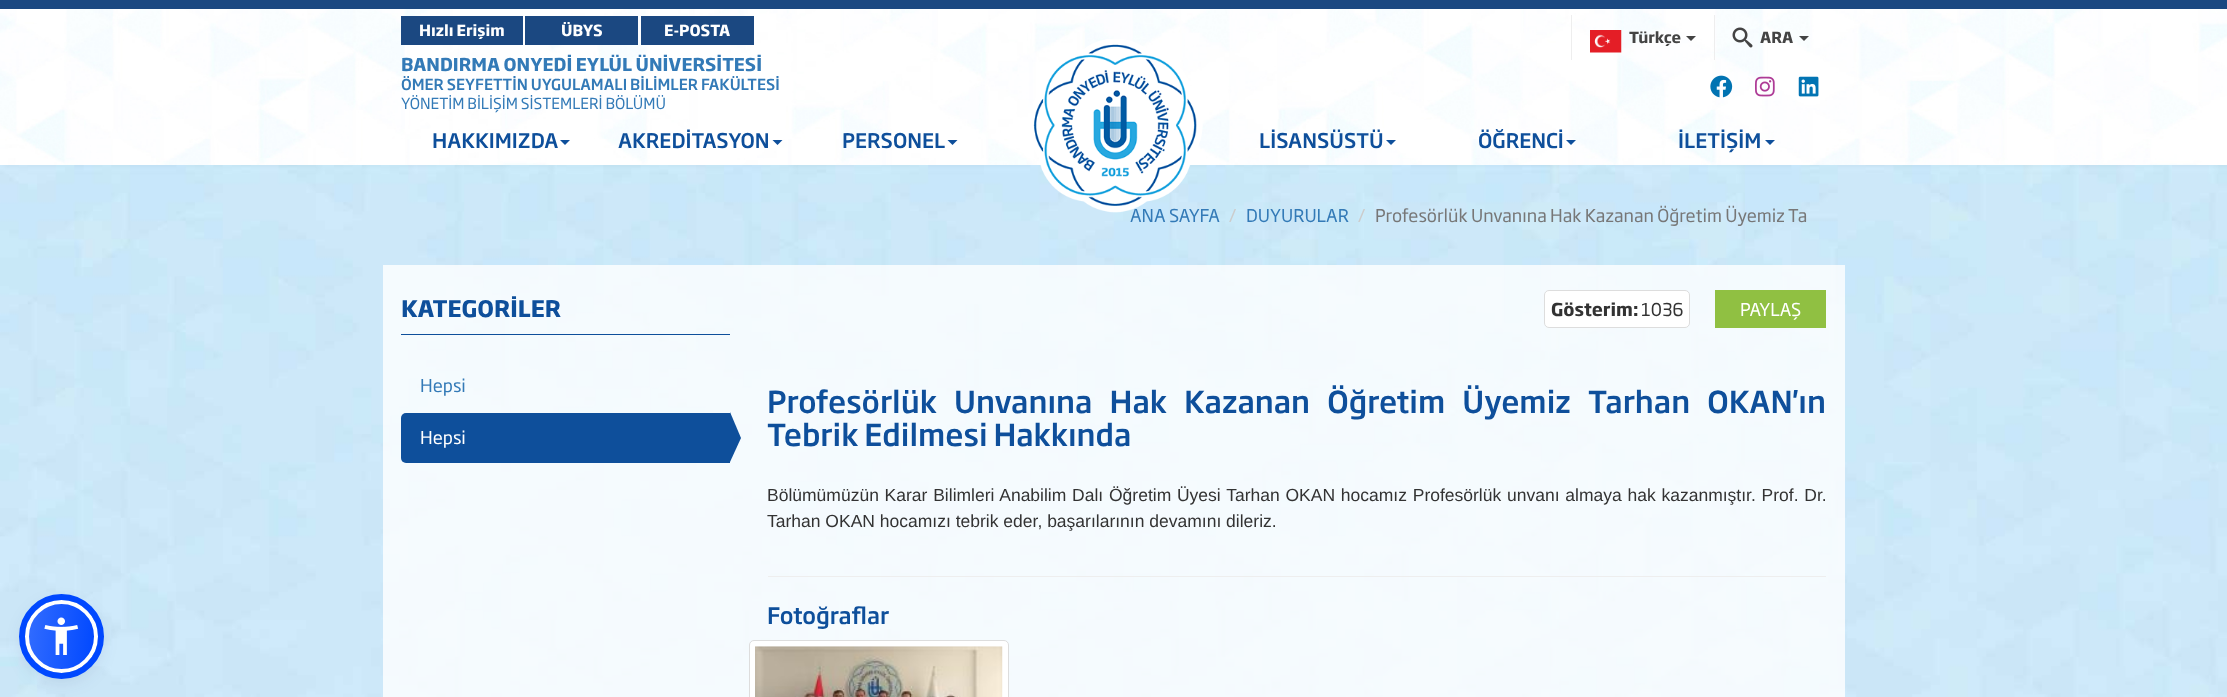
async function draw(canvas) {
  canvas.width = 2227
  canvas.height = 697
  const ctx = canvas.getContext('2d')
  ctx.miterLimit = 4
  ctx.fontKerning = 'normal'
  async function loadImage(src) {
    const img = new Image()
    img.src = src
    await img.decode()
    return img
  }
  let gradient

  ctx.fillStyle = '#fff'
  ctx.fillRect(0, 0, 2227, 697)
  ctx.drawImage(await loadImage('image0.png'), 0, 9, 2227, 156)
  ctx.fillStyle = '#1b4881'
  ctx.fillRect(0, 0, 2227, 9)
  ctx.fillRect(401, 16, 122, 29)
  ctx.font = 'bold 15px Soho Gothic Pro'
  ctx.fillStyle = '#fff'
  ctx.fillText('Hızlı Erişim', 419, 36)
  ctx.fillStyle = '#1b4881'
  ctx.fillRect(525, 16, 113, 29)
  ctx.fillStyle = '#fff'
  ctx.fillText('ÜBYS', 561, 36)
  ctx.fillStyle = '#1b4881'
  ctx.fillRect(641, 16, 113, 29)
  ctx.fillStyle = '#fff'
  ctx.fillText('E-POSTA', 664, 36)
  ctx.fillStyle = '#eee'
  ctx.fillRect(1571, 15, 1, 45)
  ctx.drawImage(await loadImage('image1.png'), 1590, 30, 32, 23)
  ctx.fillStyle = '#444'
  ctx.fillText('Türkçe', 1629, 43)
  ctx.beginPath()
  ctx.moveTo(1686, 36)
  ctx.lineTo(1696, 36)
  ctx.lineTo(1691, 41)
  ctx.closePath()
  ctx.fill()
  ctx.fillStyle = '#eee'
  ctx.fillRect(1714, 15, 1, 45)
  ctx.drawImage(await loadImage('image2.png'), 1732, 27, 21, 21)
  ctx.fillStyle = '#444'
  ctx.fillText('ARA', 1760, 43)
  ctx.beginPath()
  ctx.moveTo(1799, 36)
  ctx.lineTo(1809, 36)
  ctx.lineTo(1804, 41)
  ctx.closePath()
  ctx.fill()
  ctx.font = 'bold 17.5px Soho Gothic Pro'
  ctx.fillStyle = '#337ab7'
  ctx.fillText('BANDIRMA ONYEDİ EYLÜL ÜNİVERSİTESİ', 401, 71)
  ctx.font = '500 15px Soho Gothic Pro'
  ctx.fillText('ÖMER SEYFETTİN UYGULAMALI BİLİMLER FAKÜLTESİ', 401, 90)
  ctx.font = '15px Soho Gothic Pro'
  ctx.fillText('YÖNETİM BİLİŞİM SİSTEMLERİ BÖLÜMÜ', 401, 109)
  ctx.font = '500 20px Soho Gothic Pro'
  ctx.fillStyle = '#0e4f9b'
  ctx.fillText('HAKKIMIZDA', 432, 148)
  ctx.beginPath()
  ctx.moveTo(560, 140)
  ctx.lineTo(570, 140)
  ctx.lineTo(565, 145)
  ctx.closePath()
  ctx.fill()
  ctx.fillText('AKREDİTASYON', 618, 148)
  ctx.beginPath()
  ctx.moveTo(772.5, 140)
  ctx.lineTo(782.5, 140)
  ctx.lineTo(777.5, 145)
  ctx.closePath()
  ctx.fill()
  ctx.fillText('PERSONEL', 842, 148)
  ctx.beginPath()
  ctx.moveTo(947.5, 140)
  ctx.lineTo(957.5, 140)
  ctx.lineTo(952.5, 145)
  ctx.closePath()
  ctx.fill()
  ctx.drawImage(await loadImage('image8.png'), 0, 165, 2227, 532)
  ctx.font = '17.5px Soho Gothic Pro'
  ctx.fillStyle = '#337ab7'
  ctx.fillText('ANA SAYFA', 1130, 222)
  ctx.drawImage(await loadImage('image3.png'), 1033, 39, 170, 174)
  ctx.font = '500 20px Soho Gothic Pro'
  ctx.fillStyle = '#0e4f9b'
  ctx.fillText('LİSANSÜSTÜ', 1259, 148)
  ctx.beginPath()
  ctx.moveTo(1386, 140)
  ctx.lineTo(1396, 140)
  ctx.lineTo(1391, 145)
  ctx.closePath()
  ctx.fill()
  ctx.fillText('ÖĞRENCİ', 1478, 148)
  ctx.beginPath()
  ctx.moveTo(1566, 140)
  ctx.lineTo(1576, 140)
  ctx.lineTo(1571, 145)
  ctx.closePath()
  ctx.fill()
  ctx.fillText('İLETİŞİM', 1678, 148)
  ctx.beginPath()
  ctx.moveTo(1765, 140)
  ctx.lineTo(1775, 140)
  ctx.lineTo(1770, 145)
  ctx.closePath()
  ctx.fill()
  ctx.drawImage(await loadImage('image4.png'), 1710, 75, 23, 23)
  ctx.drawImage(await loadImage('image5.png'), 1755, 76, 20, 21)
  ctx.drawImage(await loadImage('image6.png'), 1798, 76, 21, 21)
  ctx.fillStyle = '#5d649433'
  ctx.filter = 'blur(2.5px)'
  ctx.beginPath()
  ctx.roundRect(25, 603, 73, 72, 36)
  ctx.fill()
  ctx.filter = 'none'
  ctx.fillStyle = '#252c6126'
  ctx.filter = 'blur(9.5px)'
  ctx.beginPath()
  ctx.roundRect(25, 606, 73, 73, 36.5)
  ctx.fill()
  ctx.filter = 'none'
  ctx.save()
  ctx.beginPath()
  ctx.roundRect(25, 600, 73, 73, 36.5)
  ctx.clip()
  gradient = ctx.createLinearGradient(26, 633, 97, 640)
  gradient.addColorStop(0, '#326cff')
  gradient.addColorStop(1, '#0048ff')
  ctx.fillStyle = gradient
  ctx.fillRect(29, 604, 65, 65)
  ctx.restore()
  ctx.beginPath()
  ctx.arc(61.5, 636.5, 34.5, 0, 2 * Math.PI)
  ctx.strokeStyle = '#fff'
  ctx.lineWidth = 4
  ctx.stroke()
  ctx.beginPath()
  ctx.arc(61.5, 636.5, 39.5, 0, 2 * Math.PI)
  ctx.strokeStyle = '#0048ff'
  ctx.lineWidth = 6
  ctx.stroke()
  ctx.drawImage(await loadImage('image7.png'), 44, 617, 35, 38)
  ctx.font = '17.5px Soho Gothic Pro'
  ctx.fillStyle = '#ccc'
  ctx.fillText('/', 1229, 222)
  ctx.fillStyle = '#337ab7'
  ctx.fillText('DUYURULAR', 1246, 222)
  ctx.fillStyle = '#ccc'
  ctx.fillText('/', 1358, 222)
  ctx.fillStyle = '#777'
  ctx.fillText('Profesörlük Unvanına Hak Kazanan Öğretim Üyemiz Ta', 1375, 222)
  ctx.fillStyle = '#ffffffcc'
  ctx.fillRect(383, 265, 1462, 432)
  ctx.fillStyle = '#0e4f9b'
  ctx.fillRect(401, 334, 329, 1)
  ctx.font = 'bold 22.5px Soho Gothic Pro'
  ctx.fillText('KATEGORİLER', 401, 317)
  ctx.font = '17.5px Soho Gothic Pro'
  ctx.fillStyle = '#337ab7'
  ctx.fillText('Hepsi', 420, 392)
  ctx.fillStyle = '#0e4f9b'
  ctx.beginPath()
  ctx.roundRect(401, 413, 329, 50, [5, 0, 0, 5])
  ctx.fill()
  ctx.fillStyle = '#fff'
  ctx.fillText('Hepsi', 420, 444)
  ctx.fillStyle = '#0e4f9b'
  ctx.beginPath()
  ctx.moveTo(730, 462)
  ctx.lineTo(730, 412)
  ctx.lineTo(741, 438)
  ctx.closePath()
  ctx.fill()
  ctx.fillStyle = '#fff'
  ctx.beginPath()
  ctx.roundRect(1544.5, 290.5, 145, 37, 4.5)
  ctx.fill()
  ctx.strokeStyle = '#ddd'
  ctx.lineWidth = 1
  ctx.stroke()
  ctx.font = 'bold 17.5px Soho Gothic Pro'
  ctx.fillStyle = '#333'
  ctx.fillText('Gösterim:', 1551, 316)
  ctx.font = '17.5px Soho Gothic Pro'
  ctx.fillText('1036', 1641, 316)
  ctx.fillStyle = '#90c042'
  ctx.fillRect(1715, 290, 111, 38)
  ctx.fillStyle = '#fff'
  ctx.fillText('PAYLAŞ', 1740, 316)
  ctx.wordSpacing = '11.25px'
  ctx.font = '500 30px Soho Gothic Pro'
  ctx.fillStyle = '#0e4f9b'
  ctx.fillText('Profesörlük Unvanına Hak Kazanan Öğretim Üyemiz Tarhan OKAN\'ın', 767, 413)
  ctx.wordSpacing = '0px'
  ctx.fillText('Tebrik Edilmesi Hakkında', 767, 446)
  ctx.wordSpacing = '0.9px'
  ctx.font = '17.5px Liberation Sans'
  ctx.fillStyle = '#333'
  ctx.fillText('Bölümümüzün Karar Bilimleri Anabilim Dalı Öğretim Üyesi Tarhan OKAN hocamız Profesörlük unvanı almaya hak kazanmıştır. Prof. Dr.', 767, 501)
  ctx.wordSpacing = '0px'
  ctx.fillText('Tarhan OKAN hocamızı tebrik eder, başarılarının devamını dileriz.', 767, 527)
  ctx.fillStyle = '#eee'
  ctx.fillRect(768, 576, 1058, 1)
  ctx.font = '500 22.5px Soho Gothic Pro'
  ctx.fillStyle = '#0e4f9b'
  ctx.fillText('Fotoğraflar', 767, 624)
  ctx.fillStyle = '#fff'
  ctx.beginPath()
  ctx.roundRect(749.5, 640.5, 259, 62, 4.5)
  ctx.fill()
  ctx.stroke()
  ctx.drawImage(await loadImage('image9.png'), 755, 646, 248, 51)
}

draw(document.querySelector('canvas'))
